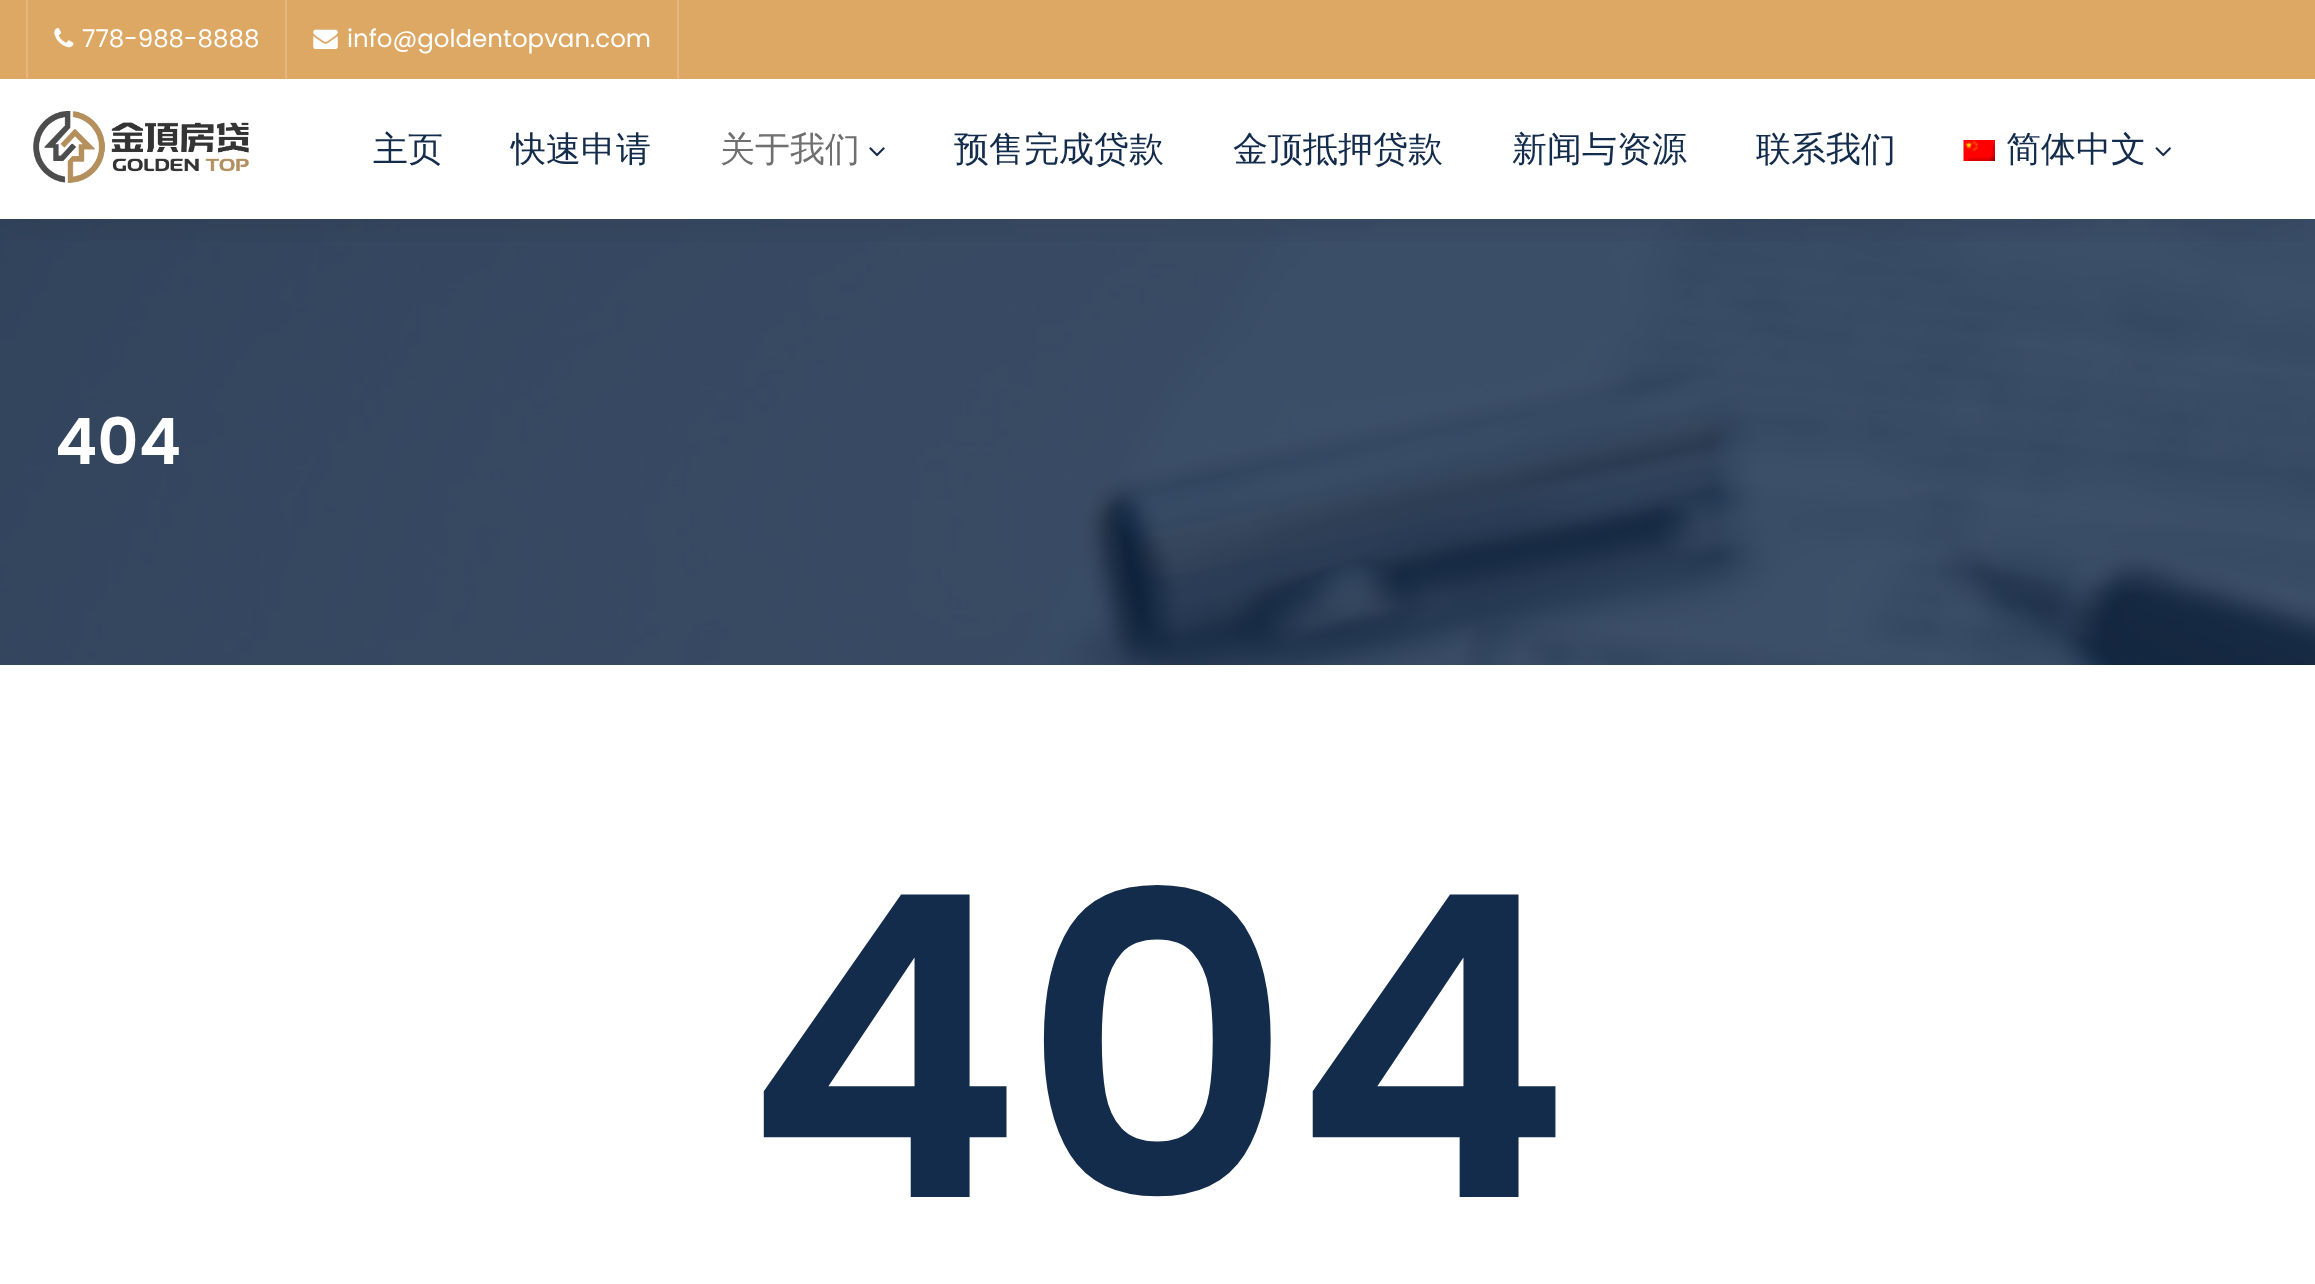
async function draw(canvas) {
  canvas.width = 2315
  canvas.height = 1284
  const ctx = canvas.getContext('2d')
  ctx.miterLimit = 4
  ctx.fontKerning = 'normal'
  async function loadImage(src) {
    const img = new Image()
    img.src = src
    await img.decode()
    return img
  }

  ctx.fillStyle = '#fff'
  ctx.fillRect(0, 0, 2315, 1284)
  ctx.drawImage(await loadImage('image6.png'), 0, 219, 2315, 446)
  ctx.save()
  ctx.beginPath()
  ctx.rect(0, 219, 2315, 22)
  ctx.clip()
  ctx.fillStyle = '#0000001a'
  ctx.filter = 'blur(26px)'
  ctx.beginPath()
  ctx.rect(0, 79, 2315, 140)
  ctx.fill()
  ctx.filter = 'none'
  ctx.restore()
  ctx.fillStyle = '#dda863'
  ctx.fillRect(0, 0, 2315, 79)
  ctx.fillStyle = '#e3b87f'
  ctx.fillRect(26, 0, 2, 79)
  ctx.drawImage(await loadImage('image0.png'), 54, 28, 20, 20)
  ctx.font = '24.5px Poppins'
  ctx.fillStyle = '#fff'
  ctx.fillText('778-988-8888', 82, 47)
  ctx.fillStyle = '#e3b87f'
  ctx.fillRect(677, 0, 2, 79)
  ctx.fillRect(285, 0, 2, 79)
  ctx.drawImage(await loadImage('image1.png'), 313, 29, 25, 20)
  ctx.fillStyle = '#fff'
  ctx.fillText('info@goldentopvan.com', 347, 47)
  ctx.drawImage(await loadImage('image2.png'), 33, 110, 216, 73)
  ctx.font = '500 35px WenQuanYi Zen Hei'
  ctx.fillStyle = '#142c4b'
  ctx.fillText('主页', 373, 161)
  ctx.fillText('快速申请', 511, 161)
  ctx.fillStyle = '#6f6f6f'
  ctx.fillText('关于我们', 720, 161)
  ctx.drawImage(await loadImage('image3.png'), 869, 147, 16, 10)
  ctx.fillStyle = '#142c4b'
  ctx.fillText('预售完成贷款', 954, 161)
  ctx.fillText('金顶抵押贷款', 1233, 161)
  ctx.fillText('新闻与资源', 1512, 161)
  ctx.fillText('联系我们', 1756, 161)
  ctx.drawImage(await loadImage('image4.png'), 1963, 140, 32, 21)
  ctx.fillText('简体中文', 2006, 161)
  ctx.drawImage(await loadImage('image5.png'), 2155, 147, 16, 10)
  ctx.font = '600 64px Poppins'
  ctx.fillStyle = '#fff'
  ctx.fillText('404', 55, 464)
  ctx.font = '600 420px Poppins'
  ctx.fillStyle = '#142c4b'
  ctx.fillText('404', 744, 1197)
}

draw(document.querySelector('canvas'))
